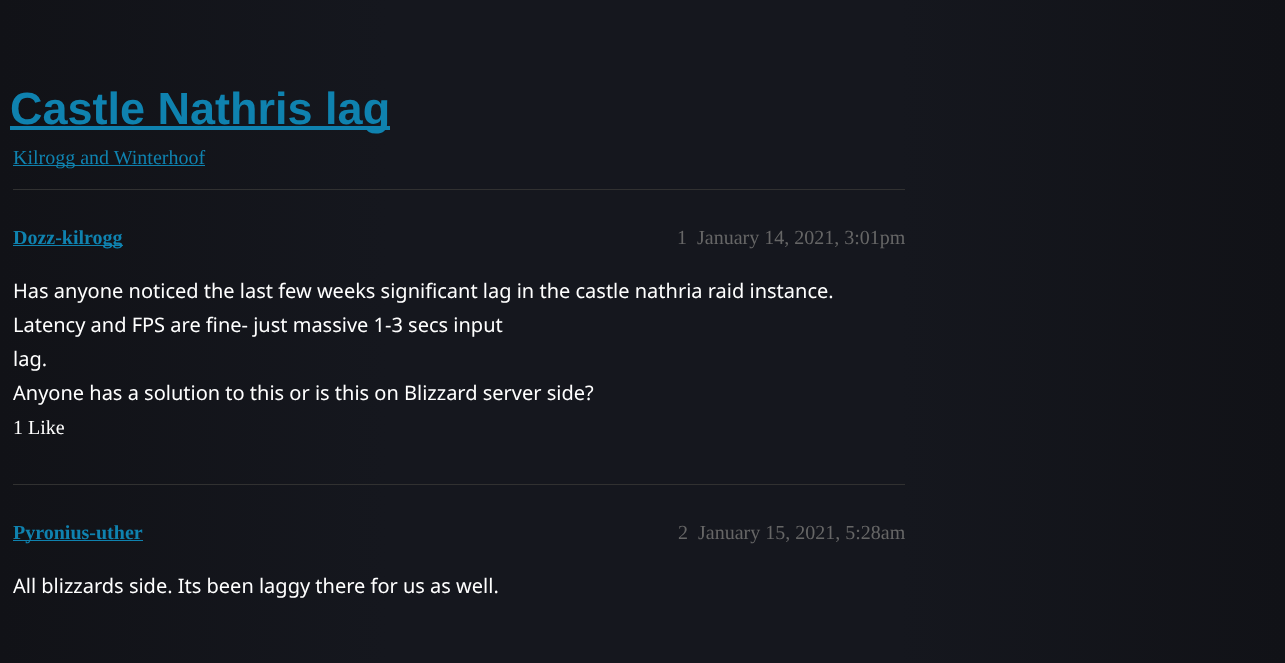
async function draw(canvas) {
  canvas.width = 1285
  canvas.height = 663
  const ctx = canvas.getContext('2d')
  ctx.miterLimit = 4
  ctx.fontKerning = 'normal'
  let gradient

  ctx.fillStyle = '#fff'
  ctx.fillRect(0, 0, 1285, 663)
  gradient = ctx.createLinearGradient(0, 379, 1285, 379)
  gradient.addColorStop(0, '#111217')
  gradient.addColorStop(0.3, '#15171e')
  gradient.addColorStop(0.7, '#15171e')
  gradient.addColorStop(1, '#111217')
  ctx.fillStyle = gradient
  ctx.fillRect(0, 0, 1285, 663)
  ctx.fillStyle = '#0f82af'
  ctx.fillRect(10, 126, 380, 4)
  ctx.font = 'bold 45px Liberation Sans'
  ctx.fillText('Castle Nathris lag', 10, 124)
  ctx.fillRect(13, 165, 192, 1)
  ctx.font = '20px Liberation Serif'
  ctx.fillText('Kilrogg and Winterhoof', 13, 164)
  ctx.fillStyle = '#313131'
  ctx.fillRect(13, 189, 892, 1)
  ctx.fillStyle = '#0f82af'
  ctx.fillRect(13, 245, 110, 1)
  ctx.font = 'bold 20px Liberation Serif'
  ctx.fillText('Dozz-kilrogg', 13, 244)
  ctx.font = '20px Liberation Serif'
  ctx.fillStyle = '#666'
  ctx.fillText('1', 677, 244)
  ctx.fillText('January 14, 2021, 3:01pm', 697, 244)
  ctx.font = '20px Noto Sans'
  ctx.fillStyle = '#fff'
  ctx.fillText('Has anyone noticed the last few weeks significant lag in the castle nathria raid instance.', 13, 298)
  ctx.fillText('Latency and FPS are fine- just massive 1-3 secs input', 13, 332)
  ctx.fillText('lag.', 13, 366)
  ctx.fillText('Anyone has a solution to this or is this on Blizzard server side?', 13, 400)
  ctx.font = '20px Liberation Serif'
  ctx.fillText('1 Like', 13, 434)
  ctx.fillStyle = '#313131'
  ctx.fillRect(13, 484, 892, 1)
  ctx.fillStyle = '#0f82af'
  ctx.fillRect(13, 540, 130, 1)
  ctx.font = 'bold 20px Liberation Serif'
  ctx.fillText('Pyronius-uther', 13, 539)
  ctx.font = '20px Liberation Serif'
  ctx.fillStyle = '#666'
  ctx.fillText('2', 678, 539)
  ctx.fillText('January 15, 2021, 5:28am', 698, 539)
  ctx.font = '20px Noto Sans'
  ctx.fillStyle = '#fff'
  ctx.fillText('All blizzards side. Its been laggy there for us as well.', 13, 593)
}

draw(document.querySelector('canvas'))
